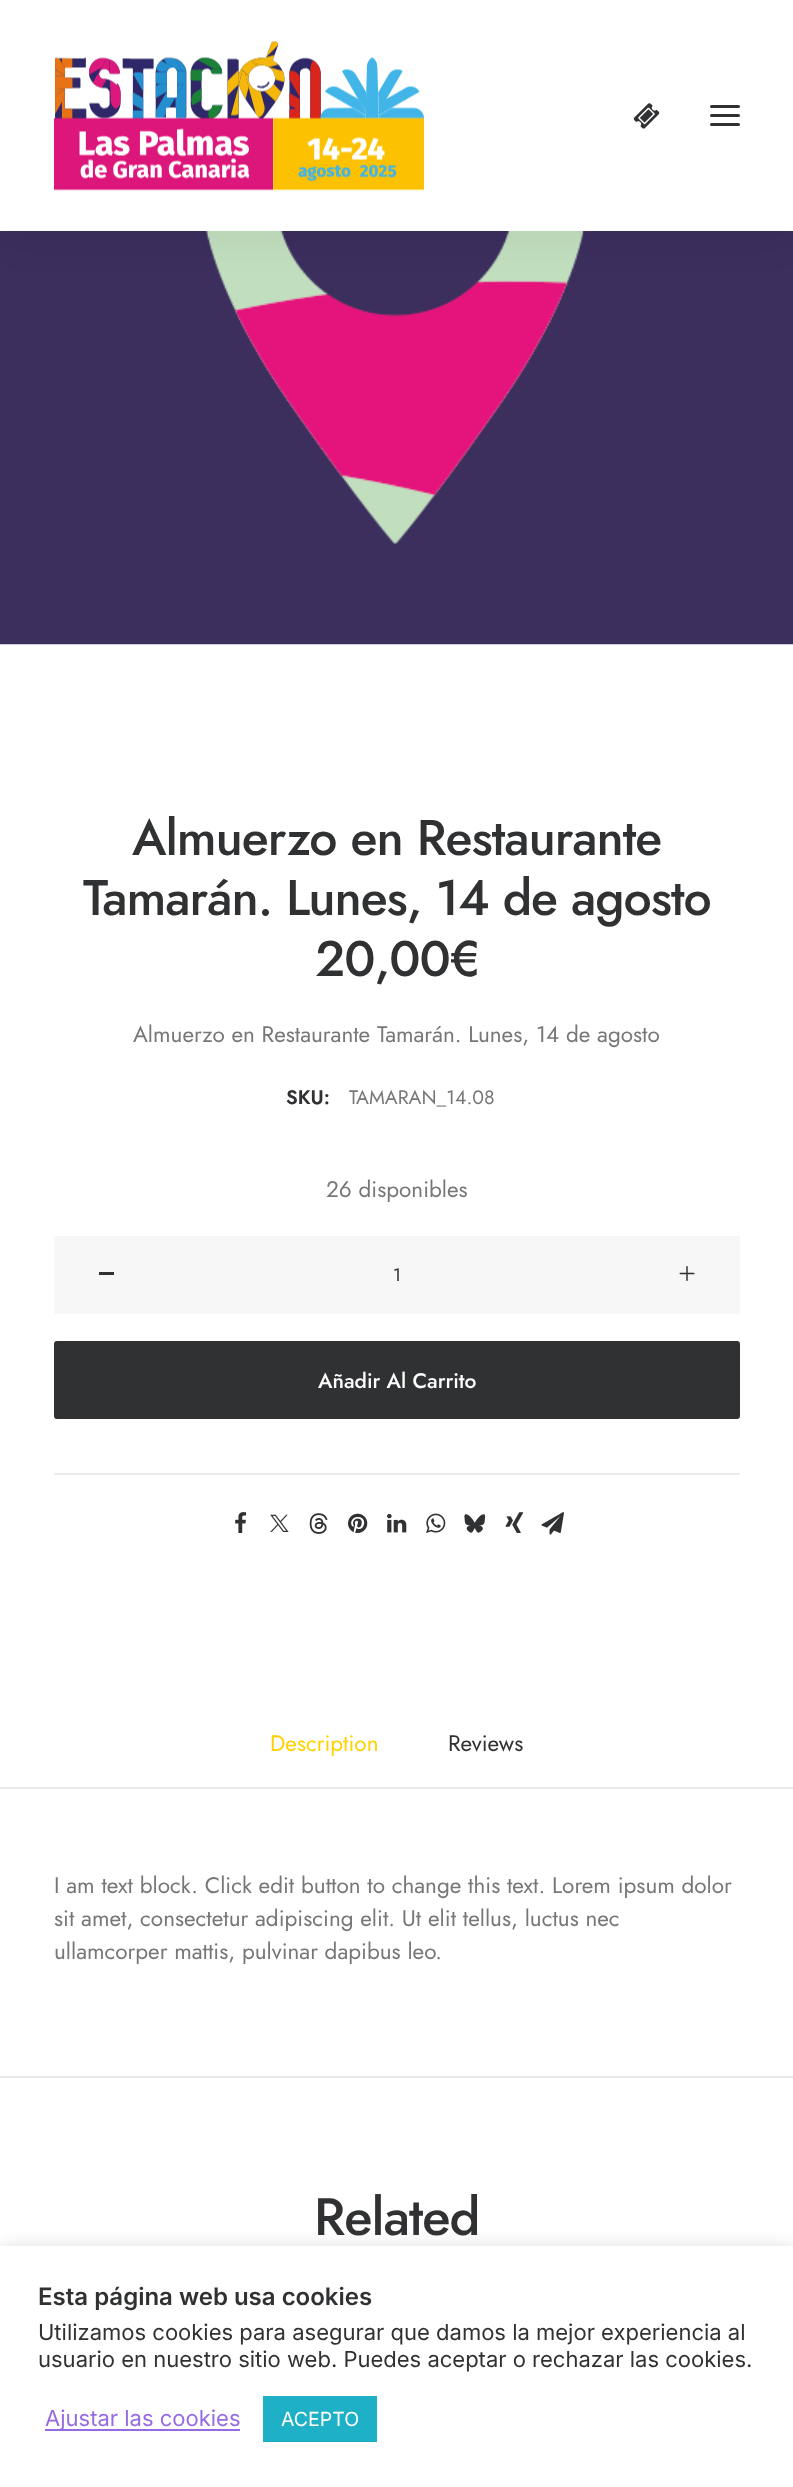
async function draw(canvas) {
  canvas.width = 793
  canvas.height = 2487
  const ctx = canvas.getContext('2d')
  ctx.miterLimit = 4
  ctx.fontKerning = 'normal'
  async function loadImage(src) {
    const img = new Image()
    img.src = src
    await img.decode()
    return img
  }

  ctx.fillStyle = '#fff'
  ctx.fillRect(0, 0, 793, 2487)
  ctx.drawImage(await loadImage('image2.png'), 0, 231, 793, 414)
  ctx.fillStyle = '#00000012'
  ctx.filter = 'blur(22.5px)'
  ctx.beginPath()
  ctx.rect(0, 0, 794, 231)
  ctx.fill()
  ctx.filter = 'none'
  ctx.fillStyle = '#fff'
  ctx.fillRect(0, 0, 793, 231)
  ctx.drawImage(await loadImage('image0.png'), 54, 41, 371, 150)
  ctx.drawImage(await loadImage('image1.png'), 633, 103, 27, 26)
  ctx.fillStyle = '#303133'
  ctx.beginPath()
  ctx.roundRect(710, 114, 30, 3, 1.5)
  ctx.fill()
  ctx.beginPath()
  ctx.roundRect(710, 105, 30, 3, 1.5)
  ctx.fill()
  ctx.beginPath()
  ctx.roundRect(710, 123, 30, 3, 1.5)
  ctx.fill()
  ctx.letterSpacing = '-1px'
  ctx.font = '500 50px Jost'
  ctx.fillText('Almuerzo en Restaurante', 132, 855)
  ctx.fillText('Tamarán. Lunes, 14 de agosto', 83, 915)
  ctx.fillText('20,00€', 315, 976)
  ctx.letterSpacing = '0px'
  ctx.font = '22.5px Jost'
  ctx.fillStyle = '#777'
  ctx.fillText('Almuerzo en Restaurante Tamarán. Lunes, 14 de agosto', 133, 1042)
  ctx.font = '600 19.5px Jost'
  ctx.fillStyle = '#303133'
  ctx.fillText('SKU:', 286, 1104)
  ctx.font = '19.5px Jost'
  ctx.fillStyle = '#777'
  ctx.fillText('TAMARAN_14.08', 349, 1104)
  ctx.font = '22.5px Jost'
  ctx.fillText('26 disponibles', 326, 1197)
  ctx.fillStyle = '#f7f7f7'
  ctx.fillRect(54, 1236, 686, 78)
  ctx.fillStyle = '#303133'
  ctx.fillRect(99, 1272, 15, 3)
  ctx.font = '18px Jost'
  ctx.fillText('1', 393, 1281)
  ctx.drawImage(await loadImage('image3.png'), 679, 1266, 16, 15)
  ctx.beginPath()
  ctx.roundRect(55, 1342, 684, 76, 2)
  ctx.fill()
  ctx.strokeStyle = '#303133'
  ctx.lineWidth = 2
  ctx.stroke()
  ctx.font = '500 21px Jost'
  ctx.fillStyle = '#fff'
  ctx.fillText('Añadir Al Carrito', 318, 1388)
  ctx.fillStyle = '#eaeaea'
  ctx.fillRect(54, 1473, 686, 2)
  ctx.drawImage(await loadImage('image4.png'), 235, 1512, 12, 21)
  ctx.drawImage(await loadImage('image5.png'), 270, 1514, 19, 18)
  ctx.drawImage(await loadImage('image6.png'), 309, 1513, 19, 21)
  ctx.drawImage(await loadImage('image7.png'), 348, 1513, 20, 20)
  ctx.drawImage(await loadImage('image8.png'), 387, 1514, 20, 19)
  ctx.drawImage(await loadImage('image9.png'), 426, 1513, 20, 20)
  ctx.drawImage(await loadImage('image10.png'), 464, 1514, 22, 19)
  ctx.drawImage(await loadImage('image11.png'), 505, 1512, 19, 21)
  ctx.drawImage(await loadImage('image12.png'), 541, 1512, 23, 23)
  ctx.font = '22.5px Jost'
  ctx.fillStyle = '#ffd100'
  ctx.fillText('Description', 270, 1751)
  ctx.fillStyle = '#303133'
  ctx.fillText('Reviews', 448, 1751)
  ctx.fillStyle = '#eaeaea'
  ctx.fillRect(0, 1787, 793, 2)
  ctx.fillStyle = '#777'
  ctx.fillText('I am text block. Click edit button to change this text. Lorem ipsum dolor', 54, 1893)
  ctx.fillText('sit amet, consectetur adipiscing elit. Ut elit tellus, luctus nec', 54, 1926)
  ctx.fillText('ullamcorper mattis, pulvinar dapibus leo.', 54, 1959)
  ctx.fillStyle = '#eaeaea'
  ctx.fillRect(0, 2076, 793, 2)
  ctx.letterSpacing = '-1px'
  ctx.font = '500 52.5px Jost'
  ctx.fillStyle = '#303133'
  ctx.fillText('Related', 314, 2235)
  ctx.fillStyle = '#acabab4d'
  ctx.filter = 'blur(7.5px)'
  ctx.beginPath()
  ctx.rect(0, 2244, 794, 242)
  ctx.fill()
  ctx.filter = 'none'
  ctx.fillStyle = '#fff'
  ctx.fillRect(0, 2246, 793, 241)
  ctx.letterSpacing = '0px'
  ctx.font = '600 24px Inter'
  ctx.fillStyle = '#303133'
  ctx.fillText('Esta página web usa cookies', 38, 2305)
  ctx.font = '22px Inter'
  ctx.fillText('Utilizamos cookies para asegurar que damos la mejor experiencia al', 38, 2340)
  ctx.fillText('usuario en nuestro sitio web. Puedes aceptar o rechazar las cookies.', 38, 2367)
  ctx.fillStyle = '#966ae2'
  ctx.fillRect(45, 2429, 195, 2)
  ctx.fillText('Ajustar las cookies', 45, 2426)
  ctx.fillStyle = '#1db0c6'
  ctx.fillRect(263, 2396, 114, 46)
  ctx.font = '19.5px Inter'
  ctx.fillStyle = '#fff'
  ctx.fillText('ACEPTO', 281, 2426)
}

draw(document.querySelector('canvas'))
